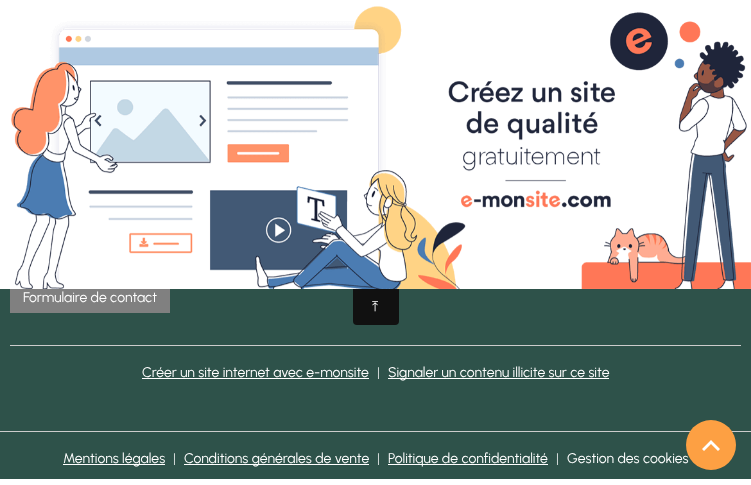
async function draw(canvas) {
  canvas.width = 751
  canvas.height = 485
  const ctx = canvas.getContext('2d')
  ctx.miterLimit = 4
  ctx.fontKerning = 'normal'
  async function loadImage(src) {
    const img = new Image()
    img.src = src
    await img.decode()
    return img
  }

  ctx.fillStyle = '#fff'
  ctx.fillRect(0, 0, 751, 485)
  ctx.fillStyle = '#2e524a'
  ctx.fillRect(0, 289, 751, 190)
  ctx.fillStyle = '#808080'
  ctx.fillRect(10, 289, 160, 24)
  ctx.font = '14px Urbanist'
  ctx.fillStyle = '#fff'
  ctx.fillText('Formulaire de contact', 23, 302)
  ctx.fillStyle = '#ccc'
  ctx.fillRect(10, 345, 731, 1)
  ctx.fillStyle = '#fff'
  ctx.fillText('Créer un site internet avec e-monsite', 142, 377)
  ctx.fillRect(142, 378, 227, 1)
  ctx.fillStyle = '#d5dcdb'
  ctx.fillText('|', 377, 377)
  ctx.fillStyle = '#fff'
  ctx.fillRect(388, 378, 221, 1)
  ctx.fillText('Signaler un contenu illicite sur ce site', 388, 377)
  ctx.fillStyle = '#ccc'
  ctx.fillRect(0, 431, 751, 1)
  ctx.fillStyle = '#fff'
  ctx.fillRect(63, 464, 102, 1)
  ctx.fillText('Mentions légales', 63, 463)
  ctx.fillStyle = '#d5dcdb'
  ctx.fillText('|', 173, 463)
  ctx.fillStyle = '#fff'
  ctx.fillRect(184, 464, 185, 1)
  ctx.fillText('Conditions générales de vente', 184, 463)
  ctx.fillStyle = '#d5dcdb'
  ctx.fillText('|', 377, 463)
  ctx.fillStyle = '#fff'
  ctx.fillRect(388, 464, 160, 1)
  ctx.fillText('Politique de confidentialité', 388, 463)
  ctx.fillStyle = '#d5dcdb'
  ctx.fillText('|', 556, 463)
  ctx.fillStyle = '#fff'
  ctx.fillText('Gestion des cookies', 567, 463)
  ctx.drawImage(await loadImage('image0.png'), 11, 6, 740, 283)
  ctx.fillStyle = '#111'
  ctx.beginPath()
  ctx.roundRect(353, 289, 46, 36, [0, 0, 4, 4])
  ctx.fill()
  ctx.font = '14px FreeSerif'
  ctx.fillStyle = '#fff'
  ctx.fillText('⤒', 372, 311)
  ctx.fillStyle = '#fda043'
  ctx.beginPath()
  ctx.arc(711, 445, 25, 0, 2 * Math.PI)
  ctx.fill()
  ctx.fillStyle = '#fff'
  ctx.beginPath()
  ctx.moveTo(711, 440)
  ctx.lineTo(720, 449)
  ctx.lineTo(718, 451)
  ctx.lineTo(711, 444)
  ctx.lineTo(704, 451)
  ctx.lineTo(702, 449)
  ctx.closePath()
  ctx.fill()
}

draw(document.querySelector('canvas'))
